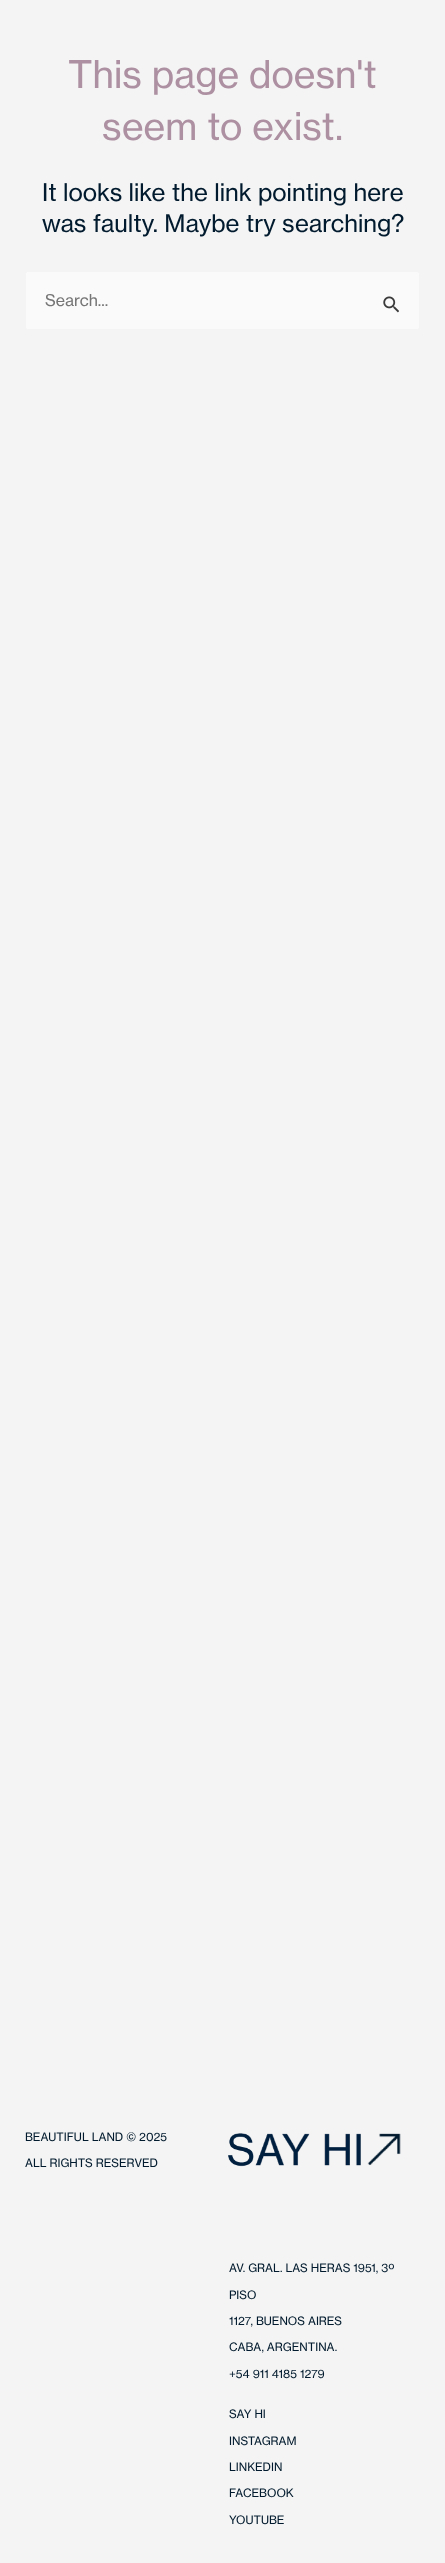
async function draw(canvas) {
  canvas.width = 445
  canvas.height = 2563
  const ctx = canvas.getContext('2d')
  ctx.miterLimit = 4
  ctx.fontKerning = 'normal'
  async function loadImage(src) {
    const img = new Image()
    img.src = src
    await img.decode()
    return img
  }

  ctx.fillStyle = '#f4f4f4'
  ctx.fillRect(0, 0, 445, 2563)
  ctx.font = '37.5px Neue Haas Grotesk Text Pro'
  ctx.fillStyle = '#ad90a1'
  ctx.fillText('This page doesn\'t', 68, 88)
  ctx.fillText('seem to exist.', 102, 140)
  ctx.font = '24px Neue Haas Grotesk Text Pro'
  ctx.fillStyle = '#011a2d'
  ctx.fillText('It looks like the link pointing here', 42, 201)
  ctx.fillText('was faulty. Maybe try searching?', 42, 232)
  ctx.fillStyle = '#fafafa'
  ctx.beginPath()
  ctx.roundRect(25.5, 271.5, 394, 58, 2)
  ctx.fill()
  ctx.strokeStyle = '#f4f4f4'
  ctx.stroke()
  ctx.font = '16px Neue Haas Grotesk Text Pro'
  ctx.fillStyle = '#757575'
  ctx.fillText('Search...', 45, 306)
  ctx.drawImage(await loadImage('image0.png'), 383, 296, 16, 17)
  ctx.font = '11.4px Neue Haas Grotesk Text Pro'
  ctx.fillStyle = '#011a2d'
  ctx.fillText('BEAUTIFUL LAND © 2025', 25, 2141)
  ctx.fillText('ALL RIGHTS RESERVED', 25, 2167)
  ctx.drawImage(await loadImage('image1.png'), 228, 2133, 173, 34)
  ctx.fillText('AV. GRAL. LAS HERAS 1951, 3º', 229, 2272)
  ctx.fillText('PISO', 229, 2299)
  ctx.fillText('1127, BUENOS AIRES', 229, 2325)
  ctx.fillText('CABA, ARGENTINA.', 229, 2351)
  ctx.fillText('+54 911 4185 1279', 229, 2378)
  ctx.fillText('SAY HI', 229, 2418)
  ctx.fillText('INSTAGRAM', 229, 2445)
  ctx.fillText('LINKEDIN', 229, 2471)
  ctx.fillText('FACEBOOK', 229, 2497)
  ctx.fillText('YOUTUBE', 229, 2524)
}

draw(document.querySelector('canvas'))
